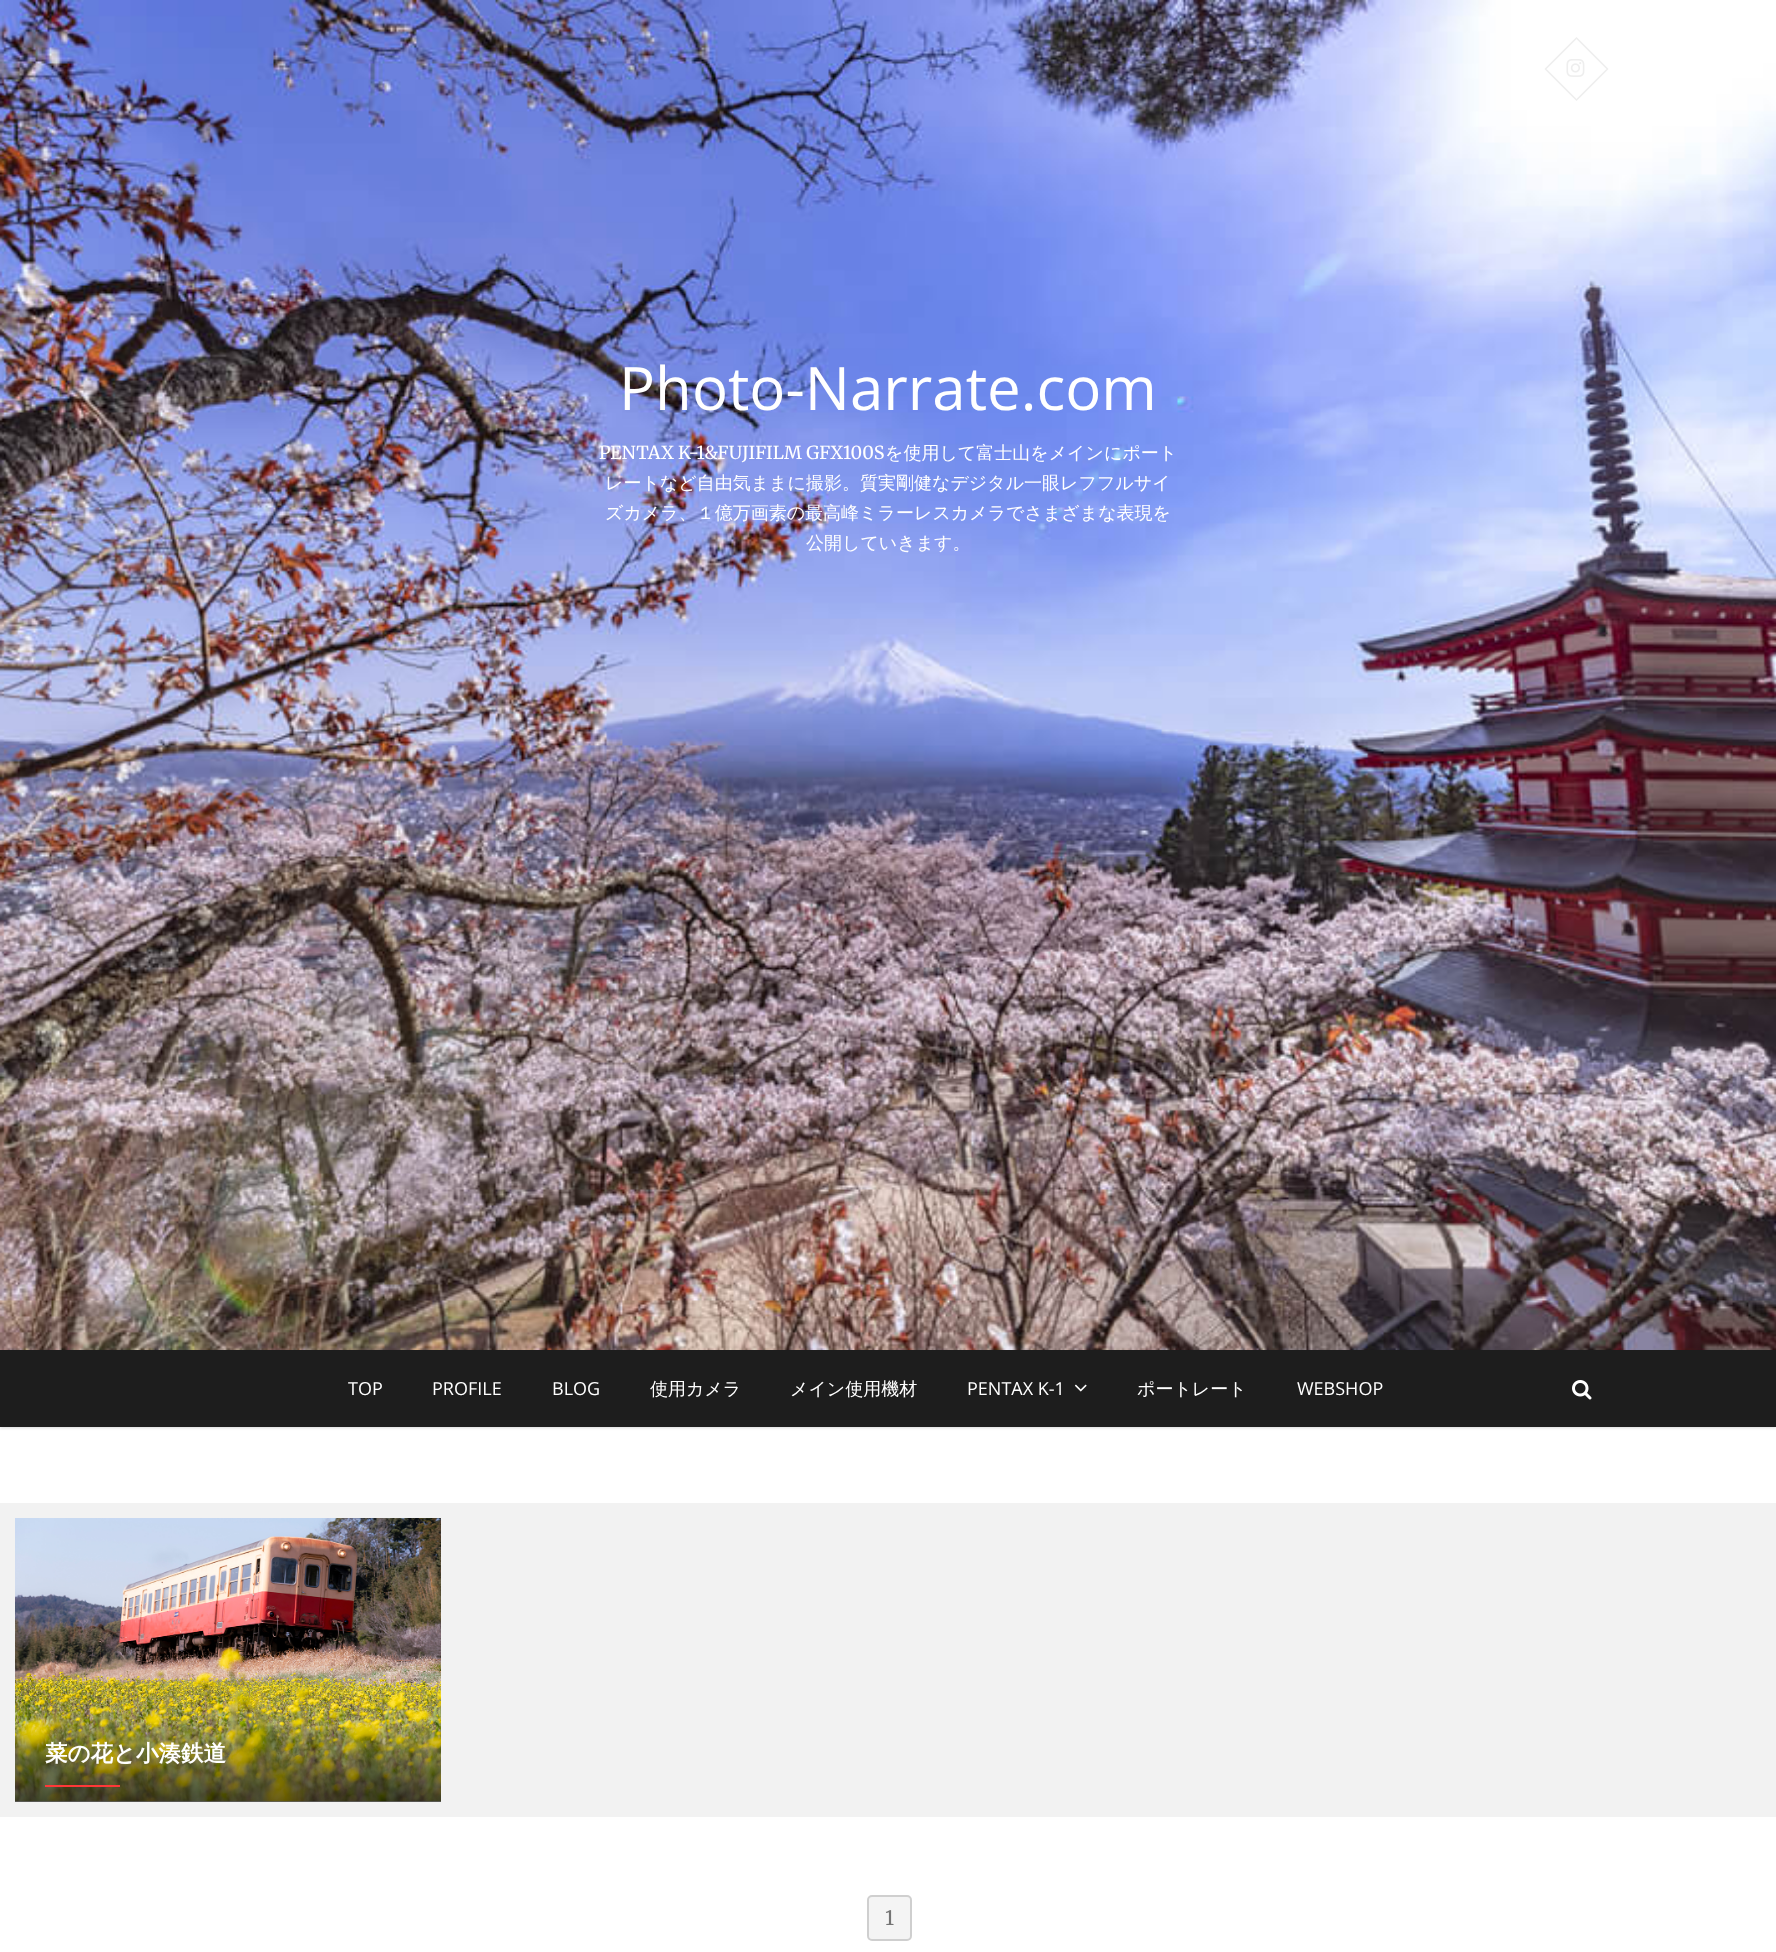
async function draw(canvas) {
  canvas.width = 1776
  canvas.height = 1952
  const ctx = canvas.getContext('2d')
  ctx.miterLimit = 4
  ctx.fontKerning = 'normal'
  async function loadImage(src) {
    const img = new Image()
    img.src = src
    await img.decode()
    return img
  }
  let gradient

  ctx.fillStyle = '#fff'
  ctx.fillRect(0, 0, 1776, 1952)
  ctx.drawImage(await loadImage('image0.png'), 0, 0, 1776, 1350)
  ctx.beginPath()
  ctx.moveTo(1545.5, 69)
  ctx.lineTo(1576.5, 38)
  ctx.lineTo(1607.5, 69)
  ctx.lineTo(1576.5, 100)
  ctx.closePath()
  ctx.strokeStyle = '#eee'
  ctx.lineWidth = 1.5
  ctx.stroke()
  ctx.drawImage(await loadImage('image1.png'), 1566, 59, 19, 18)
  ctx.font = '60px Open Sans'
  ctx.fillText('Photo-Narrate.com', 619, 410)
  ctx.font = '300 18px Merriweather'
  ctx.fillText('PENTAX K-1&FUJIFILM GFX100S', 599, 459)
  ctx.font = '500 18px WenQuanYi Zen Hei'
  ctx.fillText('を使用して富士山をメインにポート', 885, 459)
  ctx.fillText('レートなど自由気ままに撮影。質実剛健なデジタル一眼レフフルサイ', 605, 489)
  ctx.fillText('ズカメラ、１億万画素の最高峰ミラーレスカメラでさまざまな表現を', 605, 519)
  ctx.fillText('公開していきます。', 806, 549)
  ctx.fillStyle = '#00000026'
  ctx.filter = 'blur(1.5px)'
  ctx.beginPath()
  ctx.rect(0, 1352, 1776, 76)
  ctx.fill()
  ctx.filter = 'none'
  ctx.fillStyle = '#1d1d1d'
  ctx.fillRect(0, 1350, 1776, 77)
  ctx.font = '18px Open Sans'
  ctx.fillStyle = '#fff'
  ctx.fillText('TOP', 348, 1395)
  ctx.fillText('PROFILE', 432, 1395)
  ctx.fillText('BLOG', 552, 1395)
  ctx.font = '500 18px WenQuanYi Zen Hei'
  ctx.fillText('使用カメラ', 650, 1395)
  ctx.fillText('メイン使用機材', 790, 1395)
  ctx.font = '18px Open Sans'
  ctx.fillText('PENTAX K-1', 967, 1395)
  ctx.drawImage(await loadImage('image2.png'), 1074, 1384, 13, 8)
  ctx.font = '500 18px WenQuanYi Zen Hei'
  ctx.fillText('ポートレート', 1137, 1395)
  ctx.font = '18px Open Sans'
  ctx.fillText('WEBSHOP', 1297, 1395)
  ctx.drawImage(await loadImage('image3.png'), 1572, 1380, 20, 20)
  ctx.fillStyle = '#f2f2f2'
  ctx.fillRect(0, 1503, 1776, 314)
  ctx.drawImage(await loadImage('image4.png'), 15, 1518, 426, 284)
  gradient = ctx.createLinearGradient(228, 1802, 228, 1721)
  gradient.addColorStop(0, '#00000099')
  gradient.addColorStop(1, '#00000000')
  ctx.fillStyle = gradient
  ctx.fillRect(15, 1724, 426, 78)
  ctx.font = 'bold 22.5px WenQuanYi Zen Hei'
  ctx.fillStyle = '#fff'
  ctx.fillText('菜の花と小湊鉄道', 45, 1761)
  ctx.fillStyle = '#ff3838'
  ctx.fillRect(45, 1785, 75, 2)
  ctx.fillStyle = '#f4f4f4'
  ctx.beginPath()
  ctx.roundRect(867, 1895, 45, 46, 5)
  ctx.fill()
  ctx.beginPath()
  ctx.roundRect(868, 1896, 43, 44, 4)
  ctx.strokeStyle = '#00000026'
  ctx.lineWidth = 2
  ctx.stroke()
  ctx.font = '300 20px Merriweather'
  ctx.fillStyle = '#747474'
  ctx.fillText('1', 885, 1925)
}

draw(document.querySelector('canvas'))
